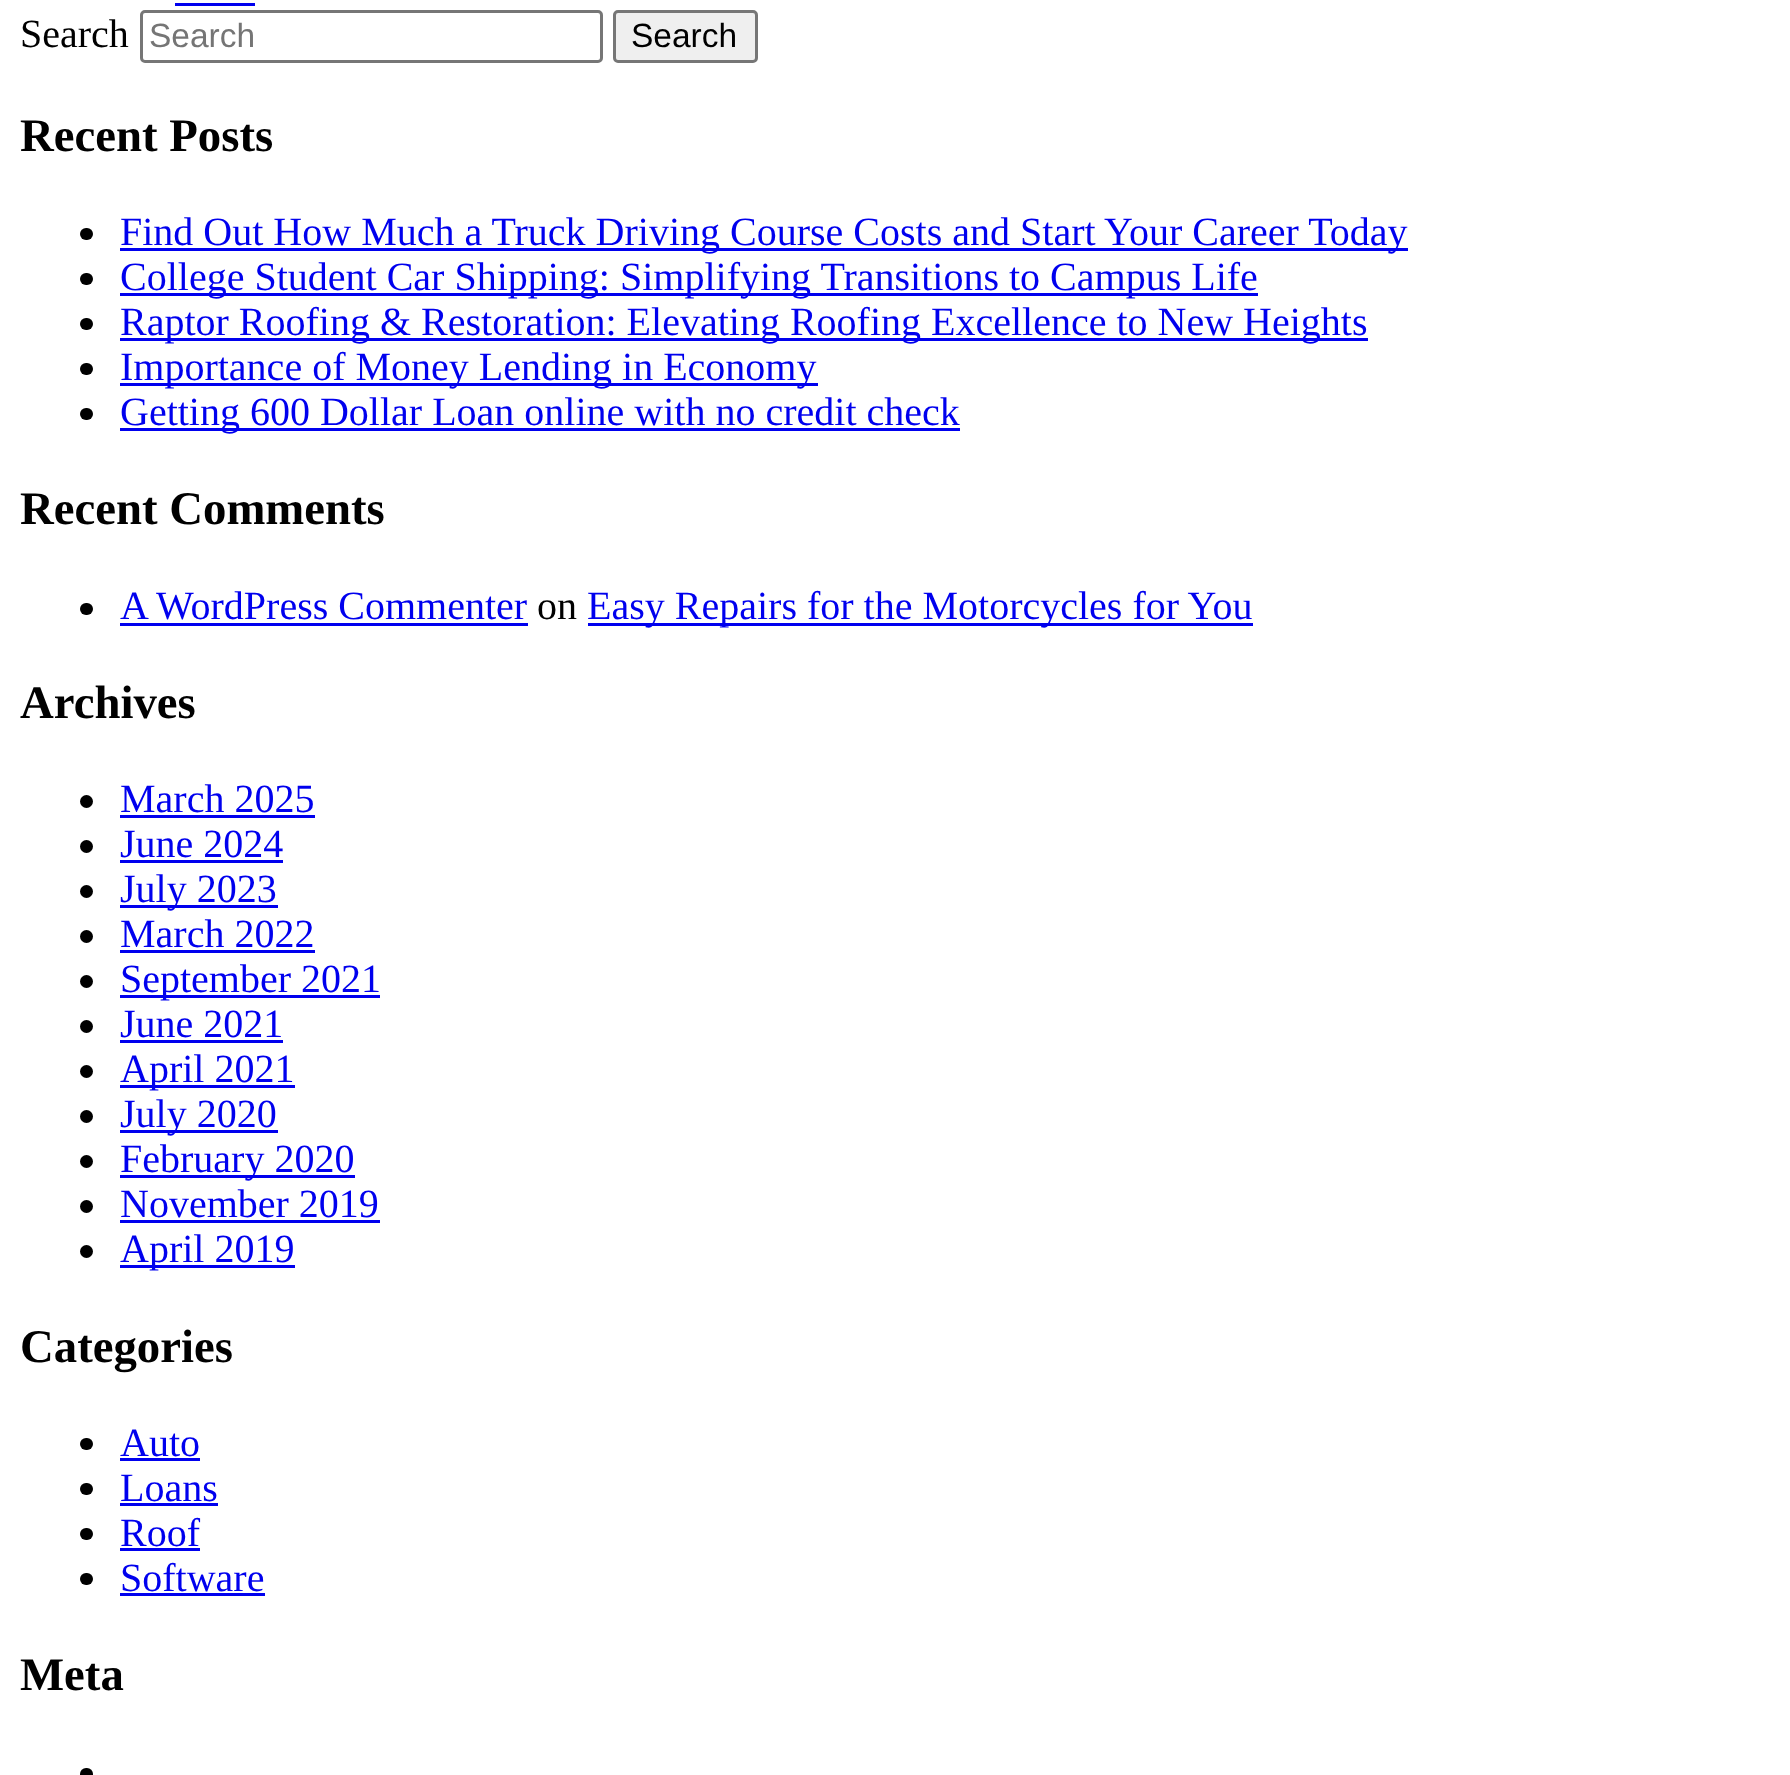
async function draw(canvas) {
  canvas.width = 1790
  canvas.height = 1775
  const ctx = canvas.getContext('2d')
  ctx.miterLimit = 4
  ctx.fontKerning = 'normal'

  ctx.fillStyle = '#fff'
  ctx.fillRect(0, 0, 1790, 1775)
  ctx.fillStyle = '#00e'
  ctx.fillRect(175, 3, 80, 3)
  ctx.font = '40px Liberation Serif'
  ctx.fillStyle = '#000'
  ctx.fillText('Search', 20, 47)
  ctx.beginPath()
  ctx.roundRect(141.5, 11.5, 460, 50, 3.5)
  ctx.strokeStyle = '#767676'
  ctx.lineWidth = 3
  ctx.stroke()
  ctx.font = '33.5px Liberation Sans'
  ctx.fillStyle = '#757575'
  ctx.fillText('Search', 149, 47)
  ctx.fillStyle = '#efefef'
  ctx.beginPath()
  ctx.roundRect(614.5, 11.5, 142, 50, 3.5)
  ctx.fill()
  ctx.stroke()
  ctx.fillStyle = '#000'
  ctx.fillText('Search', 631, 47)
  ctx.font = 'bold 46.75px Liberation Serif'
  ctx.fillText('Recent Posts', 20, 151)
  ctx.beginPath()
  ctx.roundRect(80, 228, 13, 12, 6)
  ctx.fill()
  ctx.fillStyle = '#00e'
  ctx.fillRect(120, 248, 1288, 3)
  ctx.font = '40px Liberation Serif'
  ctx.fillText('Find Out How Much a Truck Driving Course Costs and Start Your Career Today', 120, 245)
  ctx.fillStyle = '#000'
  ctx.beginPath()
  ctx.roundRect(80, 273, 13, 12, 6)
  ctx.fill()
  ctx.fillStyle = '#00e'
  ctx.fillRect(120, 293, 1138, 3)
  ctx.fillText('College Student Car Shipping: Simplifying Transitions to Campus Life', 120, 290)
  ctx.fillStyle = '#000'
  ctx.beginPath()
  ctx.roundRect(80, 318, 13, 12, 6)
  ctx.fill()
  ctx.fillStyle = '#00e'
  ctx.fillRect(120, 338, 1248, 3)
  ctx.fillText('Raptor Roofing & Restoration: Elevating Roofing Excellence to New Heights', 120, 335)
  ctx.fillStyle = '#000'
  ctx.beginPath()
  ctx.roundRect(80, 363, 13, 12, 6)
  ctx.fill()
  ctx.fillStyle = '#00e'
  ctx.fillRect(120, 383, 698, 3)
  ctx.fillText('Importance of Money Lending in Economy', 120, 380)
  ctx.fillStyle = '#000'
  ctx.beginPath()
  ctx.roundRect(80, 408, 13, 12, 6)
  ctx.fill()
  ctx.fillStyle = '#00e'
  ctx.fillRect(120, 428, 840, 3)
  ctx.fillText('Getting 600 Dollar Loan online with no credit check', 120, 425)
  ctx.font = 'bold 46.75px Liberation Serif'
  ctx.fillStyle = '#000'
  ctx.fillText('Recent Comments', 20, 524)
  ctx.beginPath()
  ctx.roundRect(80, 603, 13, 12, 6)
  ctx.fill()
  ctx.font = '40px Liberation Serif'
  ctx.fillStyle = '#00e'
  ctx.fillText('A WordPress Commenter', 120, 619)
  ctx.fillRect(120, 623, 408, 3)
  ctx.fillStyle = '#000'
  ctx.fillText('on', 537, 619)
  ctx.fillStyle = '#00e'
  ctx.fillRect(588, 623, 665, 3)
  ctx.fillText('Easy Repairs for the Motorcycles for You', 587, 619)
  ctx.font = 'bold 46.75px Liberation Serif'
  ctx.fillStyle = '#000'
  ctx.fillText('Archives', 20, 718)
  ctx.beginPath()
  ctx.arc(86.5, 801.5, 6.5, 0, 2 * Math.PI)
  ctx.fill()
  ctx.font = '40px Liberation Serif'
  ctx.fillStyle = '#00e'
  ctx.fillText('March 2025', 120, 812)
  ctx.fillRect(120, 815, 195, 3)
  ctx.fillStyle = '#000'
  ctx.beginPath()
  ctx.arc(86.5, 846.5, 6.5, 0, 2 * Math.PI)
  ctx.fill()
  ctx.fillStyle = '#00e'
  ctx.fillText('June 2024', 120, 857)
  ctx.fillRect(120, 860, 163, 3)
  ctx.fillStyle = '#000'
  ctx.beginPath()
  ctx.arc(86.5, 891.5, 6.5, 0, 2 * Math.PI)
  ctx.fill()
  ctx.fillStyle = '#00e'
  ctx.fillRect(120, 905, 158, 3)
  ctx.fillText('July 2023', 120, 902)
  ctx.fillStyle = '#000'
  ctx.beginPath()
  ctx.arc(86.5, 936.5, 6.5, 0, 2 * Math.PI)
  ctx.fill()
  ctx.fillStyle = '#00e'
  ctx.fillText('March 2022', 120, 947)
  ctx.fillRect(120, 950, 195, 3)
  ctx.fillStyle = '#000'
  ctx.beginPath()
  ctx.arc(86.5, 981.5, 6.5, 0, 2 * Math.PI)
  ctx.fill()
  ctx.fillStyle = '#00e'
  ctx.fillRect(120, 995, 260, 3)
  ctx.fillText('September 2021', 120, 992)
  ctx.fillStyle = '#000'
  ctx.beginPath()
  ctx.arc(86.5, 1026.5, 6.5, 0, 2 * Math.PI)
  ctx.fill()
  ctx.fillStyle = '#00e'
  ctx.fillText('June 2021', 120, 1037)
  ctx.fillRect(120, 1040, 163, 3)
  ctx.fillStyle = '#000'
  ctx.beginPath()
  ctx.arc(86.5, 1071.5, 6.5, 0, 2 * Math.PI)
  ctx.fill()
  ctx.fillStyle = '#00e'
  ctx.fillRect(120, 1085, 175, 3)
  ctx.fillText('April 2021', 120, 1082)
  ctx.fillStyle = '#000'
  ctx.beginPath()
  ctx.arc(86.5, 1116.5, 6.5, 0, 2 * Math.PI)
  ctx.fill()
  ctx.fillStyle = '#00e'
  ctx.fillRect(120, 1130, 158, 3)
  ctx.fillText('July 2020', 120, 1127)
  ctx.fillStyle = '#000'
  ctx.beginPath()
  ctx.arc(86.5, 1161.5, 6.5, 0, 2 * Math.PI)
  ctx.fill()
  ctx.fillStyle = '#00e'
  ctx.fillRect(120, 1175, 235, 3)
  ctx.fillText('February 2020', 120, 1172)
  ctx.fillStyle = '#000'
  ctx.beginPath()
  ctx.arc(86.5, 1206.5, 6.5, 0, 2 * Math.PI)
  ctx.fill()
  ctx.fillStyle = '#00e'
  ctx.fillText('November 2019', 120, 1217)
  ctx.fillRect(120, 1220, 260, 3)
  ctx.fillStyle = '#000'
  ctx.beginPath()
  ctx.arc(86.5, 1251.5, 6.5, 0, 2 * Math.PI)
  ctx.fill()
  ctx.fillStyle = '#00e'
  ctx.fillRect(120, 1265, 175, 3)
  ctx.fillText('April 2019', 120, 1262)
  ctx.font = 'bold 46.75px Liberation Serif'
  ctx.fillStyle = '#000'
  ctx.fillText('Categories', 20, 1362)
  ctx.beginPath()
  ctx.roundRect(80, 1438, 13, 12, 6)
  ctx.fill()
  ctx.font = '40px Liberation Serif'
  ctx.fillStyle = '#00e'
  ctx.fillText('Auto', 120, 1456)
  ctx.fillRect(120, 1458, 80, 3)
  ctx.fillStyle = '#000'
  ctx.beginPath()
  ctx.roundRect(80, 1483, 13, 12, 6)
  ctx.fill()
  ctx.fillStyle = '#00e'
  ctx.fillText('Loans', 120, 1501)
  ctx.fillRect(120, 1503, 98, 3)
  ctx.fillStyle = '#000'
  ctx.beginPath()
  ctx.roundRect(80, 1528, 13, 12, 6)
  ctx.fill()
  ctx.fillStyle = '#00e'
  ctx.fillText('Roof', 120, 1546)
  ctx.fillRect(120, 1548, 80, 3)
  ctx.fillStyle = '#000'
  ctx.beginPath()
  ctx.roundRect(80, 1573, 13, 12, 6)
  ctx.fill()
  ctx.fillStyle = '#00e'
  ctx.fillText('Software', 120, 1591)
  ctx.fillRect(120, 1593, 145, 3)
  ctx.font = 'bold 46.75px Liberation Serif'
  ctx.fillStyle = '#000'
  ctx.fillText('Meta', 20, 1690)
  ctx.beginPath()
  ctx.roundRect(80, 1768, 13, 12, 6)
  ctx.fill()
}

draw(document.querySelector('canvas'))
